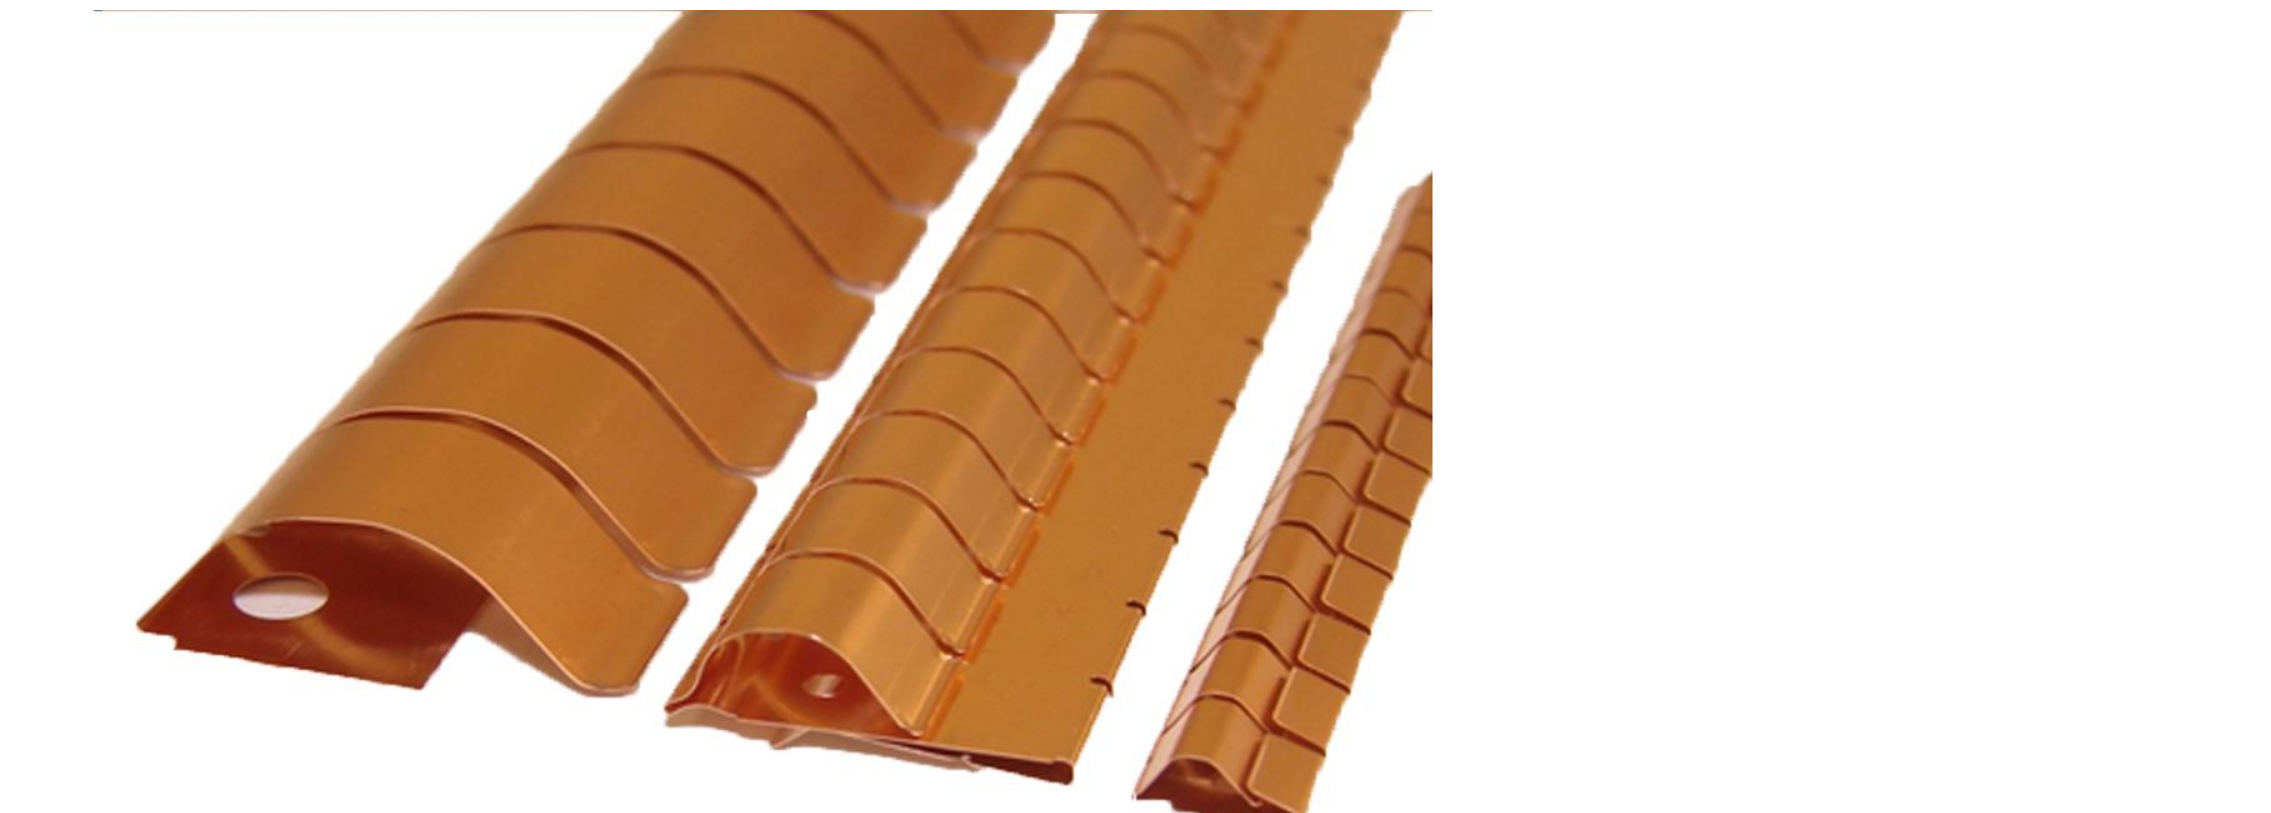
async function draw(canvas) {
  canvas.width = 2271
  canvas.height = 813
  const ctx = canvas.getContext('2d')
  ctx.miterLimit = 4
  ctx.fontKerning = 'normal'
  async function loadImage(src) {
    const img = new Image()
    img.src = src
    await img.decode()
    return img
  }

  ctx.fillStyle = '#fff'
  ctx.fillRect(0, 0, 2271, 813)
  ctx.drawImage(await loadImage('image0.png'), 90, 10, 1343, 803)
}

draw(document.querySelector('canvas'))
